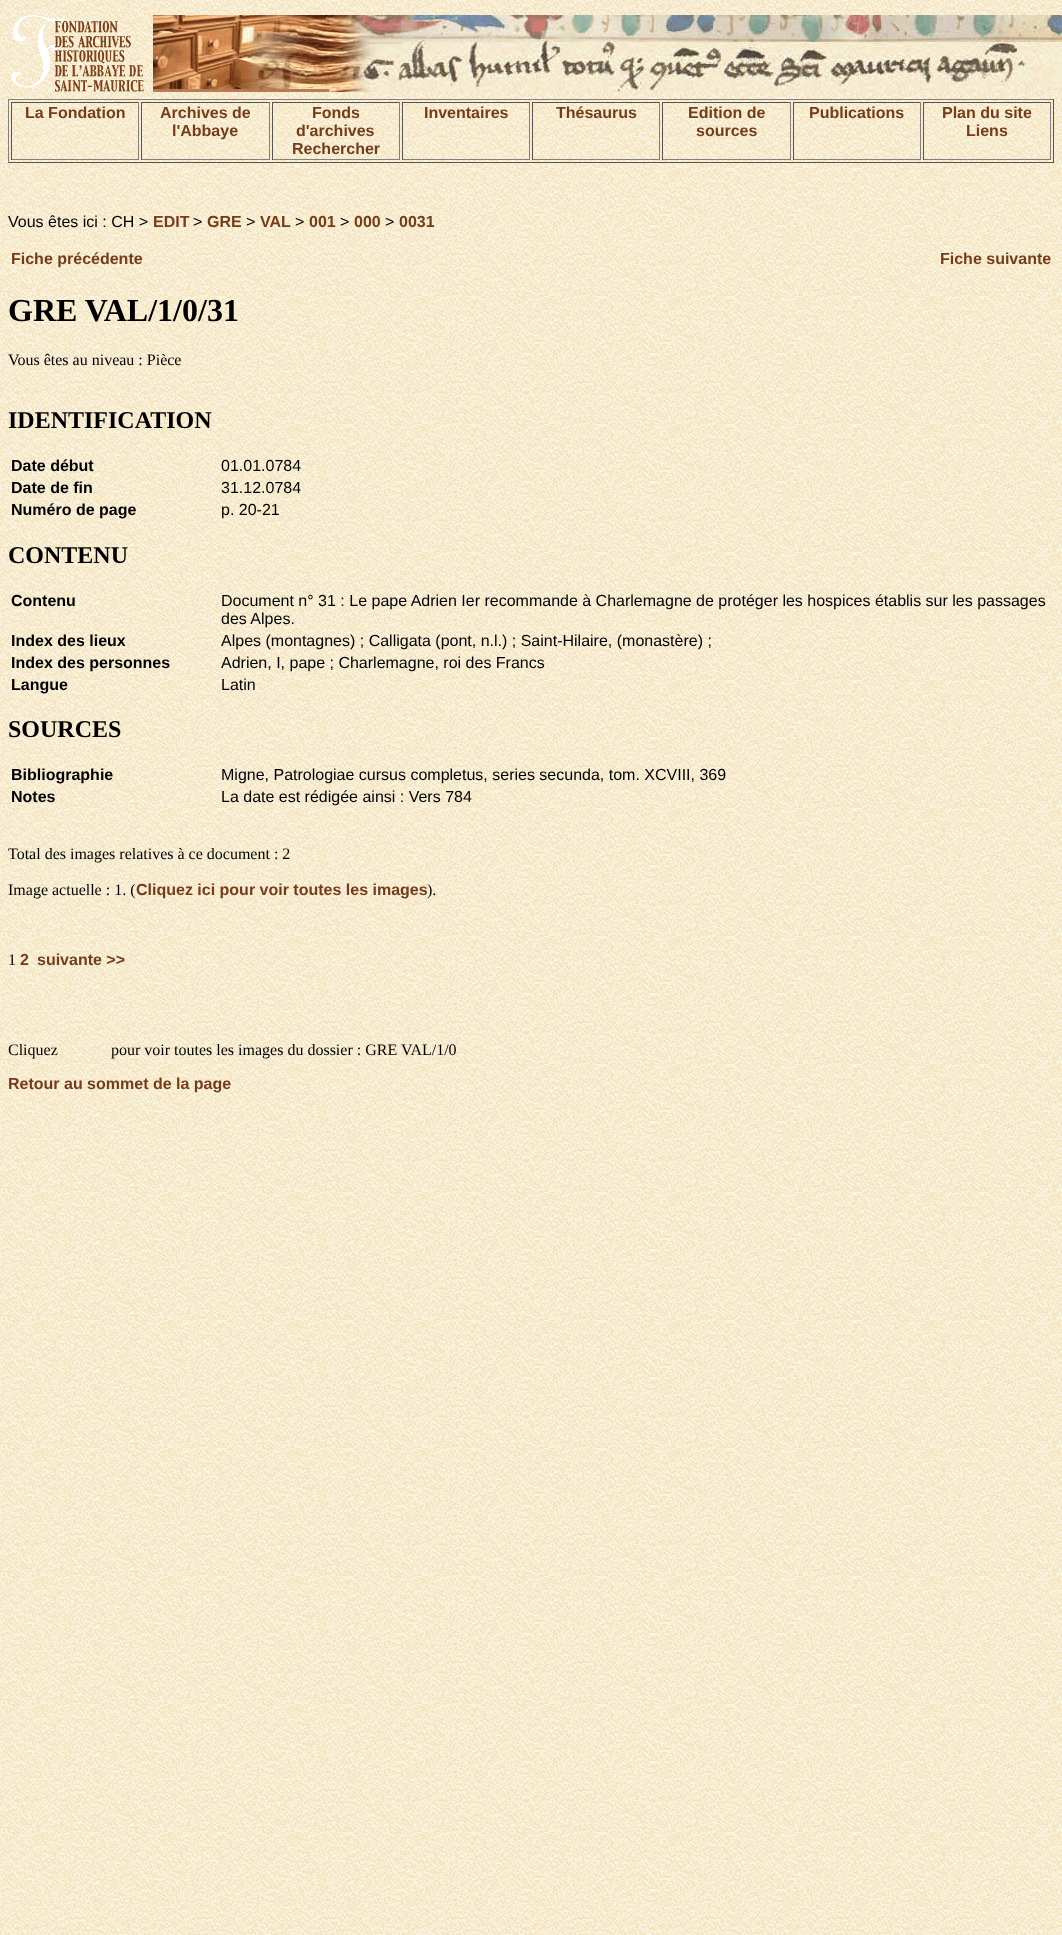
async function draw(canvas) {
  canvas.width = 1062
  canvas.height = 1935
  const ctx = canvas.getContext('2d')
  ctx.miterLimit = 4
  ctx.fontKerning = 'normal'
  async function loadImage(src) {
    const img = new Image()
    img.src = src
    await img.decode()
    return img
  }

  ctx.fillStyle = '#fff'
  ctx.fillRect(0, 0, 1062, 1935)
  ctx.drawImage(await loadImage('image0.png'), 0, 0, 1062, 1935)
  ctx.drawImage(await loadImage('image1.png'), 11, 15, 133, 77)
  ctx.drawImage(await loadImage('image2.png'), 153, 15, 909, 77)
  ctx.fillStyle = '#808080'
  ctx.fillRect(8, 99, 1046, 1)
  ctx.fillStyle = '#555'
  ctx.fillRect(1053, 99, 1, 64)
  ctx.fillRect(8, 162, 1046, 1)
  ctx.fillStyle = '#808080'
  ctx.fillRect(8, 99, 1, 64)
  ctx.fillStyle = '#555'
  ctx.fillRect(11, 102, 128, 1)
  ctx.fillStyle = '#808080'
  ctx.fillRect(138, 102, 1, 58)
  ctx.fillRect(11, 159, 128, 1)
  ctx.fillStyle = '#555'
  ctx.fillRect(11, 102, 1, 58)
  ctx.font = 'bold 16px Liberation Sans'
  ctx.fillStyle = '#743c1b'
  ctx.fillText('La Fondation', 25, 118)
  ctx.fillStyle = '#555'
  ctx.fillRect(141, 102, 129, 1)
  ctx.fillStyle = '#808080'
  ctx.fillRect(269, 102, 1, 58)
  ctx.fillRect(141, 159, 129, 1)
  ctx.fillStyle = '#555'
  ctx.fillRect(141, 102, 1, 58)
  ctx.fillStyle = '#743c1b'
  ctx.fillText('Archives de', 160, 118)
  ctx.fillText('l\'Abbaye', 172, 136)
  ctx.fillStyle = '#555'
  ctx.fillRect(272, 102, 128, 1)
  ctx.fillStyle = '#808080'
  ctx.fillRect(399, 102, 1, 58)
  ctx.fillRect(272, 159, 128, 1)
  ctx.fillStyle = '#555'
  ctx.fillRect(272, 102, 1, 58)
  ctx.fillStyle = '#743c1b'
  ctx.fillText('Fonds', 312, 118)
  ctx.fillText('d\'archives', 296, 136)
  ctx.fillText('Rechercher', 292, 154)
  ctx.fillStyle = '#555'
  ctx.fillRect(402, 102, 128, 1)
  ctx.fillStyle = '#808080'
  ctx.fillRect(529, 102, 1, 58)
  ctx.fillRect(402, 159, 128, 1)
  ctx.fillStyle = '#555'
  ctx.fillRect(402, 102, 1, 58)
  ctx.fillStyle = '#743c1b'
  ctx.fillText('Inventaires', 424, 118)
  ctx.fillStyle = '#555'
  ctx.fillRect(532, 102, 128, 1)
  ctx.fillStyle = '#808080'
  ctx.fillRect(659, 102, 1, 58)
  ctx.fillRect(532, 159, 128, 1)
  ctx.fillStyle = '#555'
  ctx.fillRect(532, 102, 1, 58)
  ctx.fillStyle = '#743c1b'
  ctx.fillText('Thésaurus', 556, 118)
  ctx.fillStyle = '#555'
  ctx.fillRect(662, 102, 129, 1)
  ctx.fillStyle = '#808080'
  ctx.fillRect(790, 102, 1, 58)
  ctx.fillRect(662, 159, 129, 1)
  ctx.fillStyle = '#555'
  ctx.fillRect(662, 102, 1, 58)
  ctx.fillStyle = '#743c1b'
  ctx.fillText('Edition de', 688, 118)
  ctx.fillText('sources', 696, 136)
  ctx.fillStyle = '#555'
  ctx.fillRect(793, 102, 128, 1)
  ctx.fillStyle = '#808080'
  ctx.fillRect(920, 102, 1, 58)
  ctx.fillRect(793, 159, 128, 1)
  ctx.fillStyle = '#555'
  ctx.fillRect(793, 102, 1, 58)
  ctx.fillStyle = '#743c1b'
  ctx.fillText('Publications', 809, 118)
  ctx.fillStyle = '#555'
  ctx.fillRect(923, 102, 128, 1)
  ctx.fillStyle = '#808080'
  ctx.fillRect(1050, 102, 1, 58)
  ctx.fillRect(923, 159, 128, 1)
  ctx.fillStyle = '#555'
  ctx.fillRect(923, 102, 1, 58)
  ctx.fillStyle = '#743c1b'
  ctx.fillText('Plan du site', 942, 118)
  ctx.fillText('Liens', 966, 136)
  ctx.font = '16px Liberation Sans'
  ctx.fillStyle = '#000'
  ctx.fillText('Vous êtes ici : CH >', 8, 227)
  ctx.font = 'bold 16px Liberation Sans'
  ctx.fillStyle = '#743c1b'
  ctx.fillText('EDIT', 153, 227)
  ctx.font = '16px Liberation Sans'
  ctx.fillStyle = '#000'
  ctx.fillText('>', 193, 227)
  ctx.font = 'bold 16px Liberation Sans'
  ctx.fillStyle = '#743c1b'
  ctx.fillText('GRE', 207, 227)
  ctx.font = '16px Liberation Sans'
  ctx.fillStyle = '#000'
  ctx.fillText('>', 246, 227)
  ctx.font = 'bold 16px Liberation Sans'
  ctx.fillStyle = '#743c1b'
  ctx.fillText('VAL', 260, 227)
  ctx.font = '16px Liberation Sans'
  ctx.fillStyle = '#000'
  ctx.fillText('>', 295, 227)
  ctx.font = 'bold 16px Liberation Sans'
  ctx.fillStyle = '#743c1b'
  ctx.fillText('001', 309, 227)
  ctx.font = '16px Liberation Sans'
  ctx.fillStyle = '#000'
  ctx.fillText('>', 340, 227)
  ctx.font = 'bold 16px Liberation Sans'
  ctx.fillStyle = '#743c1b'
  ctx.fillText('000', 354, 227)
  ctx.font = '16px Liberation Sans'
  ctx.fillStyle = '#000'
  ctx.fillText('>', 385, 227)
  ctx.font = 'bold 16px Liberation Sans'
  ctx.fillStyle = '#743c1b'
  ctx.fillText('0031', 399, 227)
  ctx.fillText('Fiche précédente', 11, 264)
  ctx.fillText('Fiche suivante', 940, 264)
  ctx.font = 'bold 32px Liberation Serif'
  ctx.fillStyle = '#000'
  ctx.fillText('GRE VAL/1/0/31', 8, 321)
  ctx.font = '16px Liberation Serif'
  ctx.fillText('Vous êtes au niveau : Pièce', 8, 365)
  ctx.font = 'bold 24px Liberation Serif'
  ctx.fillText('IDENTIFICATION', 8, 428)
  ctx.font = 'bold 16px Liberation Sans'
  ctx.fillText('Date début', 11, 471)
  ctx.font = '16px Liberation Sans'
  ctx.fillText('01.01.0784', 221, 471)
  ctx.font = 'bold 16px Liberation Sans'
  ctx.fillText('Date de fin', 11, 493)
  ctx.font = '16px Liberation Sans'
  ctx.fillText('31.12.0784', 221, 493)
  ctx.font = 'bold 16px Liberation Sans'
  ctx.fillText('Numéro de page', 11, 515)
  ctx.font = '16px Liberation Sans'
  ctx.fillText('p. 20-21', 221, 515)
  ctx.font = 'bold 24px Liberation Serif'
  ctx.fillText('CONTENU', 8, 563)
  ctx.font = 'bold 16px Liberation Sans'
  ctx.fillText('Contenu', 11, 606)
  ctx.font = '16px Liberation Sans'
  ctx.fillText('Document n° 31 : Le pape Adrien Ier recommande à Charlemagne de protéger les hospices établis sur les passages', 221, 606)
  ctx.fillText('des Alpes.', 221, 624)
  ctx.font = 'bold 16px Liberation Sans'
  ctx.fillText('Index des lieux', 11, 646)
  ctx.font = '16px Liberation Sans'
  ctx.fillText('Alpes (montagnes) ; Calligata (pont, n.l.) ; Saint-Hilaire, (monastère) ;', 221, 646)
  ctx.font = 'bold 16px Liberation Sans'
  ctx.fillText('Index des personnes', 11, 668)
  ctx.font = '16px Liberation Sans'
  ctx.fillText('Adrien, I, pape ; Charlemagne, roi des Francs', 221, 668)
  ctx.font = 'bold 16px Liberation Sans'
  ctx.fillText('Langue', 11, 690)
  ctx.font = '16px Liberation Sans'
  ctx.fillText('Latin', 221, 690)
  ctx.font = 'bold 24px Liberation Serif'
  ctx.fillText('SOURCES', 8, 737)
  ctx.font = 'bold 16px Liberation Sans'
  ctx.fillText('Bibliographie', 11, 780)
  ctx.font = '16px Liberation Sans'
  ctx.fillText('Migne, Patrologiae cursus completus, series secunda, tom. XCVIII, 369', 221, 780)
  ctx.font = 'bold 16px Liberation Sans'
  ctx.fillText('Notes', 11, 802)
  ctx.font = '16px Liberation Sans'
  ctx.fillText('La date est rédigée ainsi : Vers 784', 221, 802)
  ctx.font = '16px Liberation Serif'
  ctx.fillText('Total des images relatives à ce document : 2', 8, 859)
  ctx.fillText('Image actuelle : 1. (', 8, 895)
  ctx.font = 'bold 16px Liberation Sans'
  ctx.fillStyle = '#743c1b'
  ctx.fillText('Cliquez ici pour voir toutes les images', 136, 895)
  ctx.font = '16px Liberation Serif'
  ctx.fillStyle = '#000'
  ctx.fillText(').', 427, 895)
  ctx.fillText('1', 8, 965)
  ctx.font = 'bold 16px Liberation Sans'
  ctx.fillStyle = '#743c1b'
  ctx.fillText('2', 20, 965)
  ctx.fillText('suivante >>', 37, 965)
  ctx.font = '16px Liberation Serif'
  ctx.fillStyle = '#000'
  ctx.fillText('Cliquez', 8, 1055)
  ctx.fillText('pour voir toutes les images du dossier : GRE VAL/1/0', 111, 1055)
  ctx.font = 'bold 16px Liberation Sans'
  ctx.fillStyle = '#743c1b'
  ctx.fillText('Retour au sommet de la page', 8, 1089)
}

draw(document.querySelector('canvas'))
